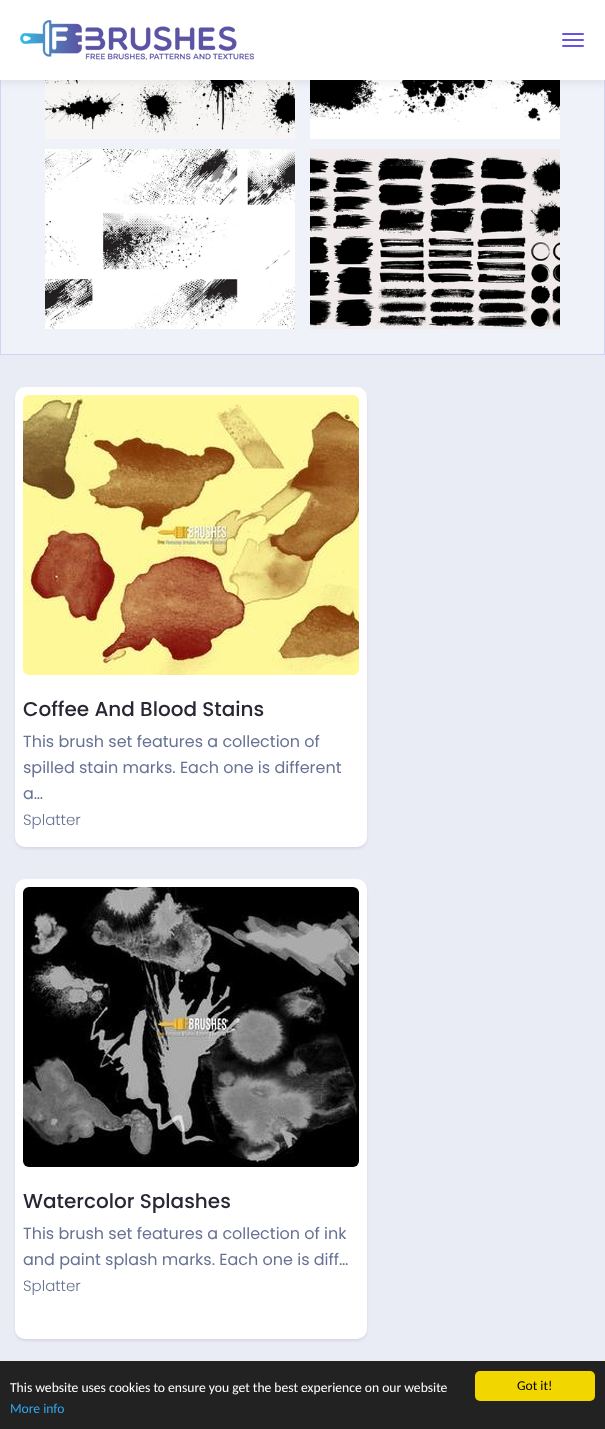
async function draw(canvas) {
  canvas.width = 605
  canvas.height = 1429
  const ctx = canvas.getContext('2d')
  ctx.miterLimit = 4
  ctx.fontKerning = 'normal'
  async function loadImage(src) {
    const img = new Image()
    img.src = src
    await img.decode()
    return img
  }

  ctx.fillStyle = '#e9ecf4'
  ctx.fillRect(0, 0, 605, 1429)
  ctx.fillStyle = '#eff2f9'
  ctx.fillRect(1, 80, 603, 274)
  ctx.strokeStyle = '#d6d2f5'
  ctx.strokeRect(0.5, -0.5, 604, 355)
  ctx.drawImage(await loadImage('image1.png'), 45, 80, 250, 59)
  ctx.drawImage(await loadImage('image2.png'), 310, 80, 250, 42)
  ctx.fillStyle = '#0c002e0f'
  ctx.filter = 'blur(3px)'
  ctx.beginPath()
  ctx.rect(0, 4, 605, 80)
  ctx.fill()
  ctx.filter = 'none'
  ctx.fillStyle = '#fff'
  ctx.fillRect(0, 0, 605, 80)
  ctx.drawImage(await loadImage('image0.png'), 20, 20, 234, 40)
  ctx.fillStyle = '#6754e2'
  ctx.beginPath()
  ctx.roundRect(562, 33, 22, 2, 1)
  ctx.fill()
  ctx.beginPath()
  ctx.roundRect(562, 39, 22, 2, 1)
  ctx.fill()
  ctx.beginPath()
  ctx.roundRect(562, 45, 22, 2, 1)
  ctx.fill()
  ctx.fillStyle = '#fff'
  ctx.fillRect(310, 122, 250, 17)
  ctx.drawImage(await loadImage('image3.png'), 45, 149, 250, 180)
  ctx.drawImage(await loadImage('image4.png'), 310, 149, 250, 180)
  ctx.fillStyle = '#dbd6e9'
  ctx.filter = 'blur(1px)'
  ctx.beginPath()
  ctx.roundRect(15, 389, 352, 460, 10)
  ctx.fill()
  ctx.filter = 'none'
  ctx.fillStyle = '#fff'
  ctx.beginPath()
  ctx.roundRect(15, 387, 352, 460, 10)
  ctx.fill()
  ctx.drawImage(await loadImage('image5.png'), 23, 395, 336, 280)
  ctx.font = '500 20px Poppins'
  ctx.fillStyle = '#282835'
  ctx.fillText('Coffee And Blood Stains', 23, 716)
  ctx.font = '16px Poppins'
  ctx.fillStyle = '#677294'
  ctx.fillText('This brush set features a collection of', 23, 747)
  ctx.fillText('spilled stain marks. Each one is different', 23, 773)
  ctx.fillText('a…', 23, 799)
  ctx.font = '300 15px Poppins'
  ctx.fillText('Splatter', 23, 825)
  ctx.fillStyle = '#dbd6e9'
  ctx.filter = 'blur(1px)'
  ctx.beginPath()
  ctx.roundRect(15, 881, 352, 460, 10)
  ctx.fill()
  ctx.filter = 'none'
  ctx.fillStyle = '#fff'
  ctx.beginPath()
  ctx.roundRect(15, 879, 352, 460, 10)
  ctx.fill()
  ctx.drawImage(await loadImage('image6.png'), 23, 887, 336, 280)
  ctx.save()
  ctx.beginPath()
  ctx.rect(23, 1167, 208, 46)
  ctx.clip()
  ctx.font = '500 20px Poppins'
  ctx.fillStyle = '#282835'
  ctx.fillText('Watercolor Splashes', 23, 1208)
  ctx.restore()
  ctx.font = '16px Poppins'
  ctx.fillStyle = '#677294'
  ctx.fillText('This brush set features a collection of ink', 23, 1239)
  ctx.fillText('and paint splash marks. Each one is diff…', 23, 1265)
  ctx.font = '300 15px Poppins'
  ctx.fillText('Splatter', 23, 1291)
  ctx.fillStyle = '#222'
  ctx.fillRect(0, 1361, 605, 68)
  ctx.font = '13.6px Carlito'
  ctx.fillStyle = '#fff'
  ctx.fillText('This website uses cookies to ensure you get the best experience on our website', 10, 1392)
  ctx.fillStyle = '#31a8f0'
  ctx.fillText('More info', 10, 1413)
  ctx.fillStyle = '#f1d600'
  ctx.beginPath()
  ctx.roundRect(475, 1371, 120, 30, 5)
  ctx.fill()
  ctx.fillStyle = '#000'
  ctx.fillText('Got it!', 517, 1390)
}

draw(document.querySelector('canvas'))
